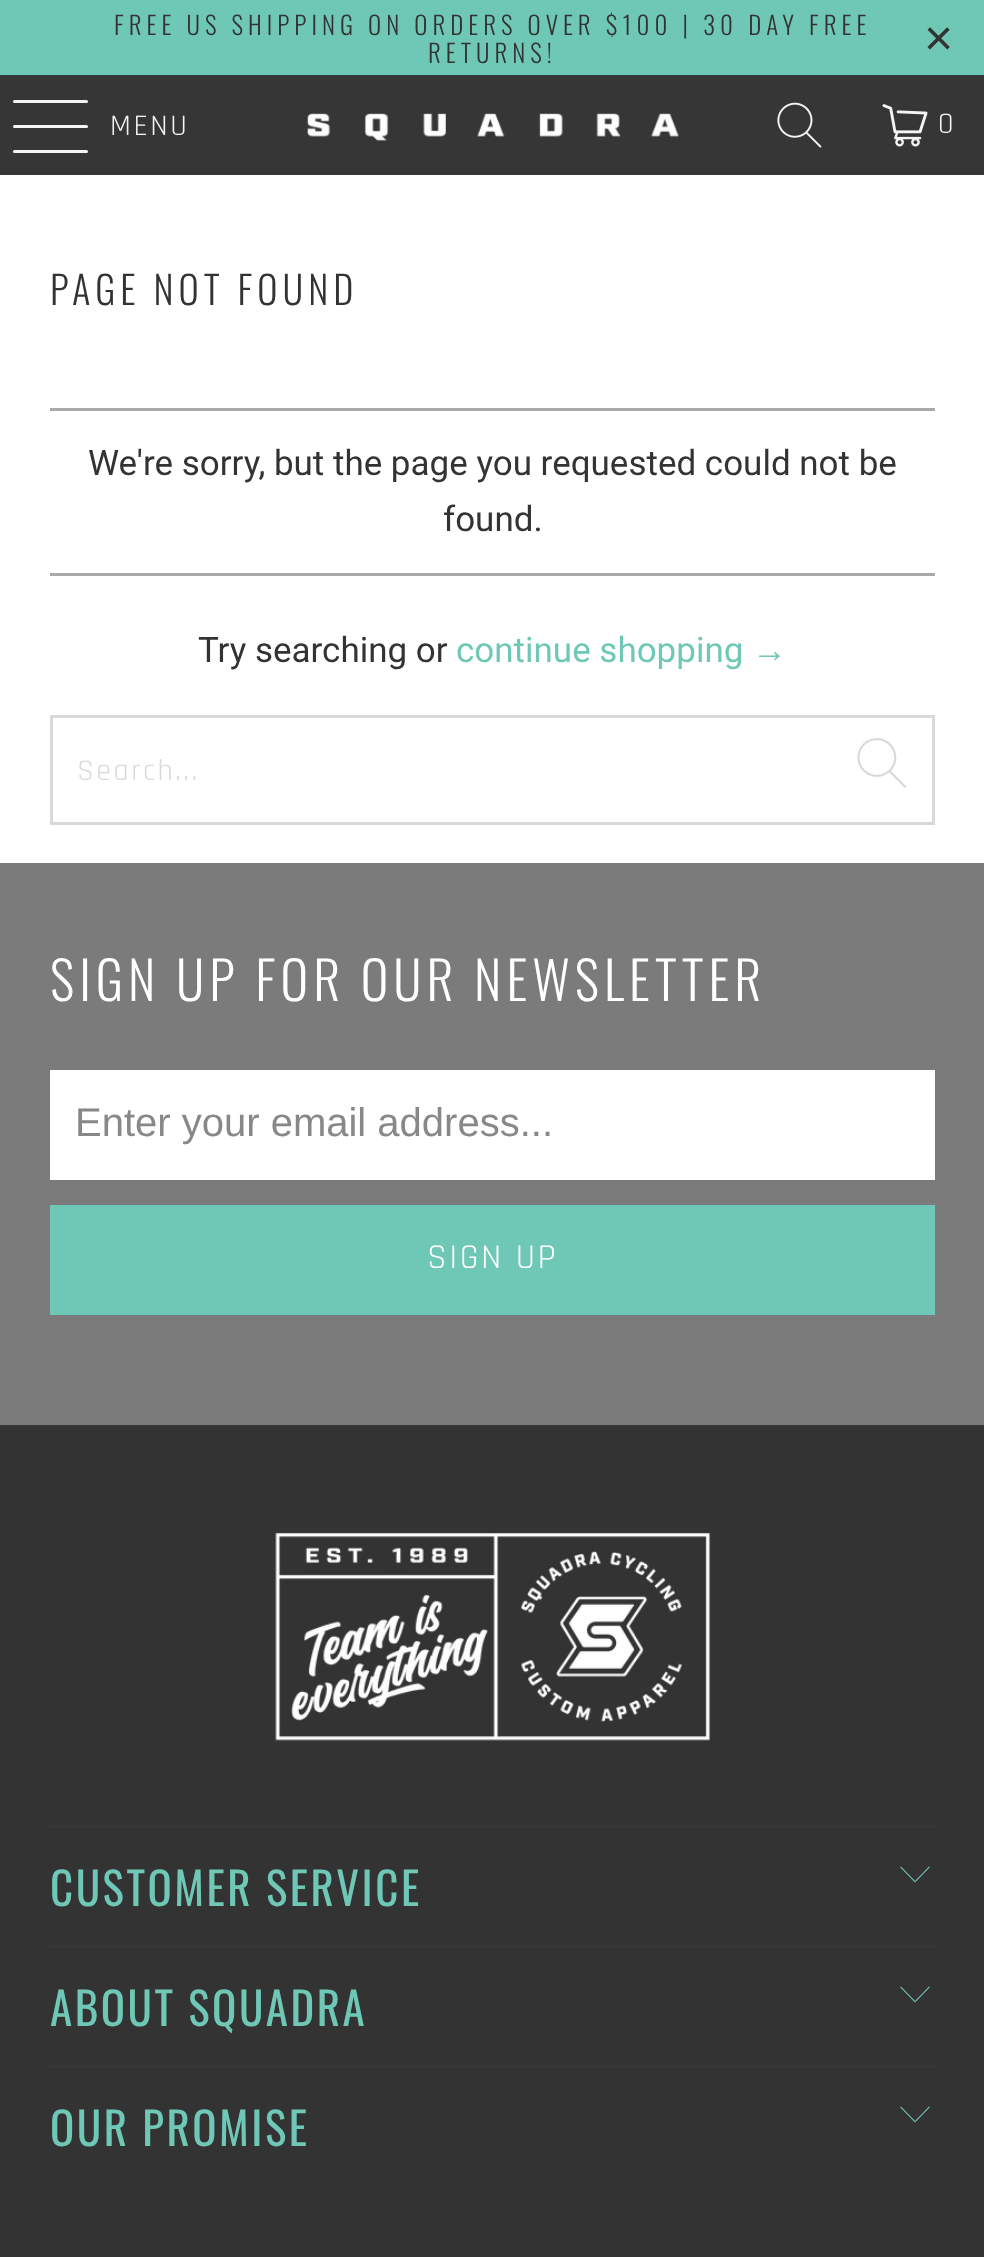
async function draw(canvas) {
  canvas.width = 984
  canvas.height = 2257
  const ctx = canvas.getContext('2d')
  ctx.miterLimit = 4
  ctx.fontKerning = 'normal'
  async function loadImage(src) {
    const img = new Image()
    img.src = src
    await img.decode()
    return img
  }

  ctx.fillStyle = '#fff'
  ctx.fillRect(0, 0, 984, 2257)
  ctx.fillStyle = '#6fc7b6'
  ctx.fillRect(0, 0, 984, 75)
  ctx.letterSpacing = '5px'
  ctx.font = '300 25px Oswald'
  ctx.fillStyle = '#333'
  ctx.fillText('FREE US SHIPPING ON ORDERS OVER $100 | 30 DAY FREE', 114, 35)
  ctx.fillText('RETURNS!', 428, 63)
  ctx.font = '50px Liberation Sans'
  ctx.fillText('×', 924, 55)
  ctx.fillStyle = '#363636'
  ctx.fillRect(0, 75, 984, 100)
  ctx.fillStyle = '#f4f4f4'
  ctx.beginPath()
  ctx.roundRect(13, 100, 75, 3, 1.5)
  ctx.fill()
  ctx.beginPath()
  ctx.roundRect(13, 125, 75, 3, 1.5)
  ctx.fill()
  ctx.beginPath()
  ctx.roundRect(13, 150, 75, 3, 1.5)
  ctx.fill()
  ctx.letterSpacing = '2.5px'
  ctx.font = '30px Rajdhani'
  ctx.fillText('MENU', 110, 135)
  ctx.drawImage(await loadImage('image0.png'), 307, 113, 372, 28)
  ctx.drawImage(await loadImage('image1.png'), 777, 102, 45, 46)
  ctx.drawImage(await loadImage('image2.png'), 882, 104, 46, 43)
  ctx.fillText('0', 938, 133)
  ctx.letterSpacing = '5px'
  ctx.font = '300 38.5px Oswald'
  ctx.fillStyle = '#333'
  ctx.fillText('PAGE NOT FOUND', 50, 305)
  ctx.fillStyle = '#aaa'
  ctx.fillRect(50, 408, 885, 3)
  ctx.fillRect(50, 573, 885, 3)
  ctx.letterSpacing = '0px'
  ctx.font = '35px Roboto'
  ctx.fillStyle = '#333'
  ctx.fillText('We\'re sorry, but the page you requested could not be', 88, 475)
  ctx.fillText('found.', 443, 531)
  ctx.fillText('Try searching or', 198, 662)
  ctx.fillStyle = '#6fc7b6'
  ctx.fillText('continue shopping', 456, 662)
  ctx.font = '35px Liberation Sans'
  ctx.fillText('→', 752, 662)
  ctx.strokeStyle = '#d9d9d9'
  ctx.lineWidth = 3
  ctx.strokeRect(51.5, 716.5, 882, 107)
  ctx.letterSpacing = '2.5px'
  ctx.font = '30px Rajdhani'
  ctx.fillStyle = '#d9d9d9'
  ctx.fillText('Search...', 77, 780)
  ctx.drawImage(await loadImage('image3.png'), 857, 738, 50, 50)
  ctx.fillStyle = '#7c7b7b'
  ctx.fillRect(0, 863, 984, 562)
  ctx.letterSpacing = '5px'
  ctx.font = '300 52.5px Oswald'
  ctx.fillStyle = '#fff'
  ctx.fillText('SIGN UP FOR OUR NEWSLETTER', 50, 1001)
  ctx.fillRect(50, 1070, 885, 110)
  ctx.letterSpacing = '0px'
  ctx.font = '40px Liberation Sans'
  ctx.fillStyle = '#888'
  ctx.fillText('Enter your email address...', 75, 1136)
  ctx.fillStyle = '#6fc7b6'
  ctx.fillRect(50, 1205, 885, 110)
  ctx.letterSpacing = '2.5px'
  ctx.font = '35px Rajdhani'
  ctx.fillStyle = '#fff'
  ctx.fillText('SIGN UP', 427, 1268)
  ctx.fillStyle = '#333'
  ctx.fillRect(0, 1428, 984, 829)
  ctx.fillStyle = '#363636'
  ctx.fillRect(0, 1425, 984, 3)
  ctx.drawImage(await loadImage('image4.png'), 275, 1532, 436, 209)
  ctx.fillRect(50, 1825, 885, 3)
  ctx.font = '45px Oswald'
  ctx.fillStyle = '#6fc7b6'
  ctx.fillText('CUSTOMER SERVICE', 50, 1906)
  ctx.beginPath()
  ctx.moveTo(915, 1882.5)
  ctx.lineTo(900, 1867)
  ctx.lineTo(901, 1866.5)
  ctx.lineTo(915, 1881)
  ctx.lineTo(929, 1866.5)
  ctx.lineTo(930, 1867)
  ctx.closePath()
  ctx.fill()
  ctx.fillStyle = '#363636'
  ctx.fillRect(50, 1945, 885, 3)
  ctx.fillStyle = '#6fc7b6'
  ctx.fillText('ABOUT SQUADRA', 50, 2026)
  ctx.beginPath()
  ctx.moveTo(915, 2002.5)
  ctx.lineTo(900, 1987)
  ctx.lineTo(901, 1986.5)
  ctx.lineTo(915, 2001)
  ctx.lineTo(929, 1986.5)
  ctx.lineTo(930, 1987)
  ctx.closePath()
  ctx.fill()
  ctx.fillStyle = '#363636'
  ctx.fillRect(50, 2065, 885, 3)
  ctx.fillStyle = '#6fc7b6'
  ctx.fillText('OUR PROMISE', 50, 2146)
  ctx.beginPath()
  ctx.moveTo(915, 2122.5)
  ctx.lineTo(900, 2107)
  ctx.lineTo(901, 2106.5)
  ctx.lineTo(915, 2121)
  ctx.lineTo(929, 2106.5)
  ctx.lineTo(930, 2107)
  ctx.closePath()
  ctx.fill()
}

draw(document.querySelector('canvas'))
